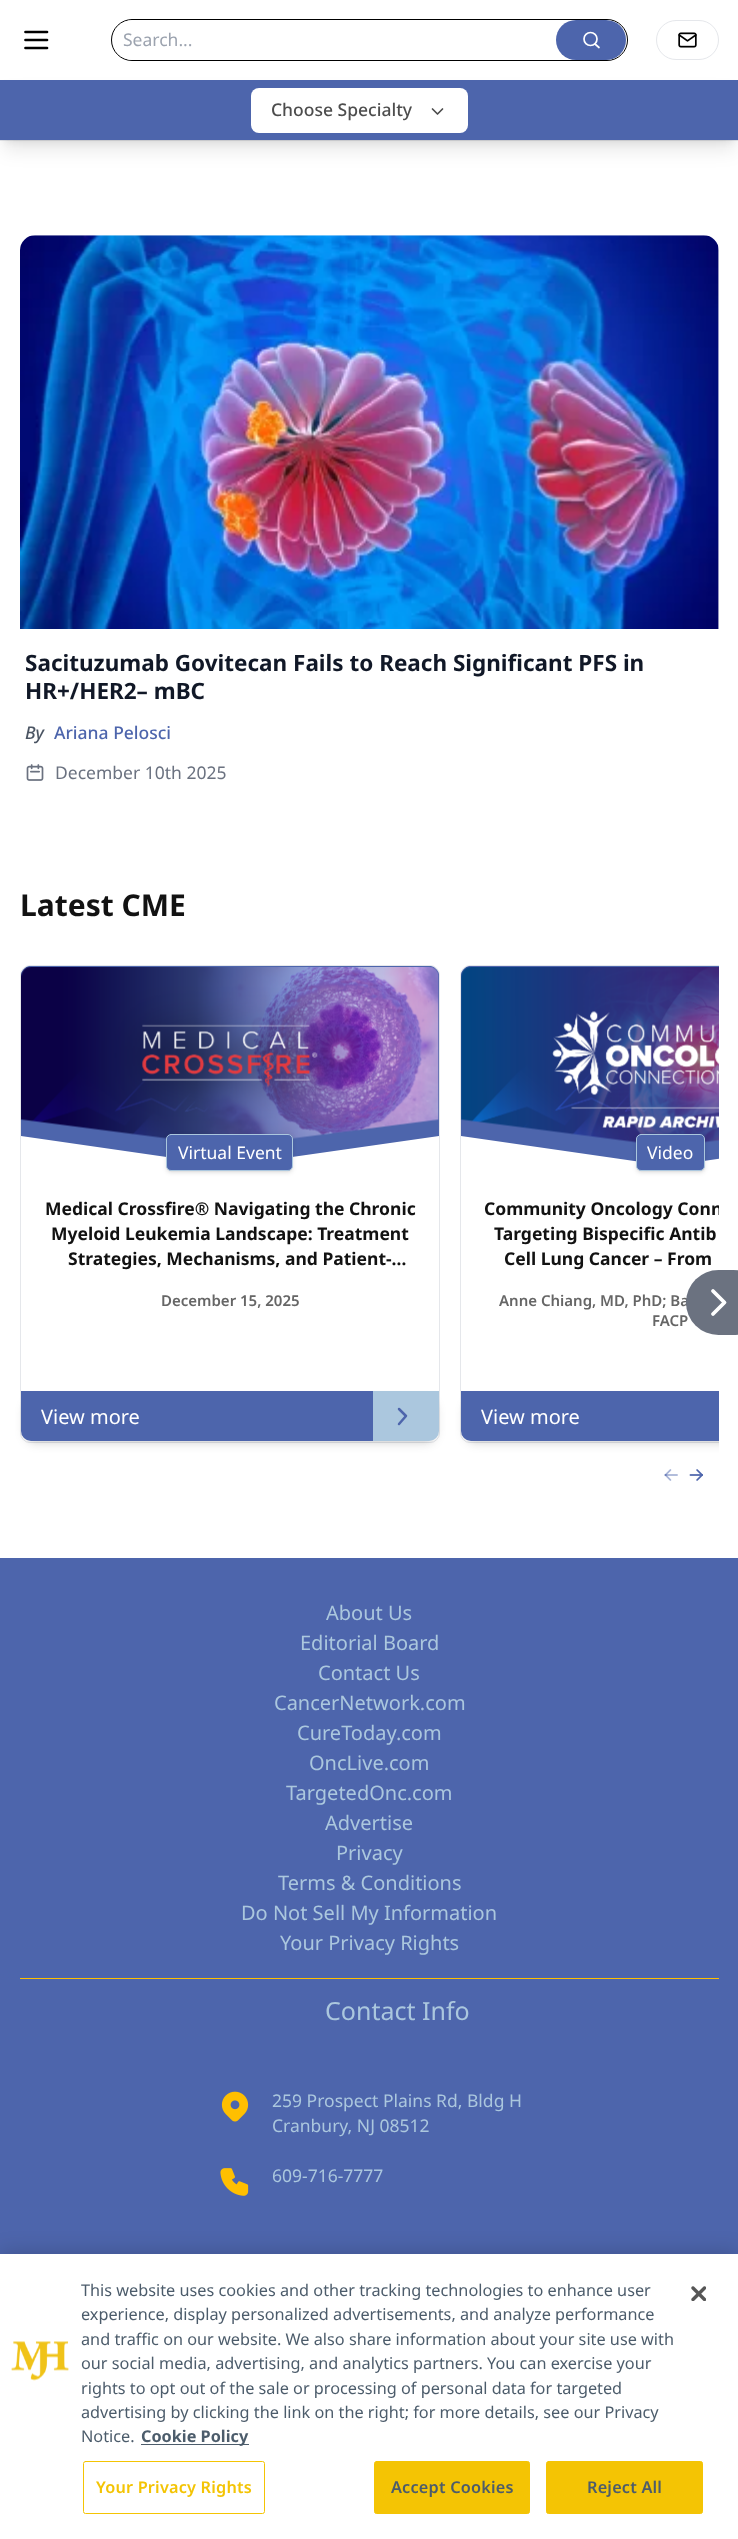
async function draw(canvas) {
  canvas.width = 738
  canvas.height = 2539
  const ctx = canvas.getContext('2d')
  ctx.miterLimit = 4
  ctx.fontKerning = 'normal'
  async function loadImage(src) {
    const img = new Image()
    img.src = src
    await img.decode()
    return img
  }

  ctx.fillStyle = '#fff'
  ctx.fillRect(0, 0, 738, 2539)
  ctx.fillStyle = '#e5e7eb'
  ctx.fillRect(0, 140, 738, 1)
  ctx.beginPath()
  ctx.moveTo(25.5, 32)
  ctx.lineTo(47, 32)
  ctx.moveTo(25.5, 40)
  ctx.lineTo(47, 40)
  ctx.moveTo(25.5, 48)
  ctx.lineTo(47, 48)
  ctx.strokeStyle = '#000'
  ctx.lineWidth = 2.7
  ctx.lineCap = 'round'
  ctx.lineJoin = 'round'
  ctx.stroke()
  ctx.beginPath()
  ctx.roundRect(111.5, 19.5, 516, 41, 20.5)
  ctx.lineWidth = 1
  ctx.lineJoin = 'miter'
  ctx.stroke()
  ctx.fillStyle = '#fff'
  ctx.beginPath()
  ctx.roundRect(113, 20, 513, 40, 20)
  ctx.fill()
  ctx.font = '17.5px Noto Sans'
  ctx.fillStyle = '#9ca3af'
  ctx.fillText('Search...', 123, 46)
  ctx.fillStyle = '#4d65ac'
  ctx.beginPath()
  ctx.roundRect(556, 20, 70, 40, 20)
  ctx.fill()
  ctx.beginPath()
  ctx.arc(590.5, 39, 6.5, 0, 2 * Math.PI)
  ctx.strokeStyle = '#fff'
  ctx.lineWidth = 1.7
  ctx.stroke()
  ctx.beginPath()
  ctx.moveTo(599, 47.5)
  ctx.lineTo(595, 44)
  ctx.lineJoin = 'round'
  ctx.stroke()
  ctx.beginPath()
  ctx.roundRect(656.5, 20.5, 62, 39, 19.5)
  ctx.strokeStyle = '#e5e7eb'
  ctx.lineWidth = 1
  ctx.lineJoin = 'miter'
  ctx.stroke()
  ctx.drawImage(await loadImage('image0.png'), 678, 32, 19, 16)
  ctx.fillStyle = '#0000001a'
  ctx.filter = 'blur(4px)'
  ctx.beginPath()
  ctx.rect(5, 90, 729, 50)
  ctx.fill()
  ctx.filter = 'none'
  ctx.filter = 'blur(9.5px)'
  ctx.beginPath()
  ctx.rect(4, 96, 731, 53)
  ctx.fill()
  ctx.filter = 'none'
  ctx.fillStyle = '#4d65ac'
  ctx.fillRect(0, 80, 738, 60)
  ctx.fillStyle = '#fff'
  ctx.beginPath()
  ctx.roundRect(251, 88, 217, 45, 8)
  ctx.fill()
  ctx.font = '500 17.5px Noto Sans'
  ctx.fillStyle = '#4d4d4d'
  ctx.fillText('Choose Specialty', 271, 116)
  ctx.beginPath()
  ctx.moveTo(432.5, 109)
  ctx.lineTo(437.5, 114)
  ctx.lineTo(442.5, 109)
  ctx.strokeStyle = '#4d4d4d'
  ctx.lineWidth = 1.7
  ctx.lineJoin = 'round'
  ctx.stroke()
  ctx.drawImage(await loadImage('image1.png'), 20, 235, 699, 394)
  ctx.font = 'bold 22.5px Noto Sans'
  ctx.fillStyle = '#111827'
  ctx.fillText('Sacituzumab Govitecan Fails to Reach Significant PFS in', 25, 671)
  ctx.fillText('HR+/HER2– mBC', 25, 699)
  ctx.font = 'italic 500 17.5px Noto Sans'
  ctx.fillStyle = '#4b5563'
  ctx.fillText('By', 25, 739)
  ctx.font = '500 17.5px Noto Sans'
  ctx.fillStyle = '#4d65ac'
  ctx.fillText('Ariana Pelosci', 54, 739)
  ctx.drawImage(await loadImage('image2.png'), 26, 764, 18, 17)
  ctx.font = '17.5px Noto Sans'
  ctx.fillStyle = '#6b7280'
  ctx.fillText('December 10th 2025', 55, 779)
  ctx.font = 'bold 30px Noto Sans'
  ctx.fillStyle = '#121212'
  ctx.fillText('Latest CME', 20, 916)
  ctx.beginPath()
  ctx.roundRect(20.5, 965.5, 419, 477, 9.5)
  ctx.strokeStyle = '#e5e7eb'
  ctx.lineWidth = 1
  ctx.lineJoin = 'miter'
  ctx.stroke()
  ctx.fillStyle = '#4d65ac'
  ctx.beginPath()
  ctx.moveTo(21, 974)
  ctx.bezierCurveTo(22, 970, 25, 967, 29, 966)
  ctx.lineTo(431, 966)
  ctx.bezierCurveTo(435, 967, 438, 970, 439, 974)
  ctx.lineTo(439, 1136)
  ctx.lineTo(229, 1166)
  ctx.lineTo(21, 1136)
  ctx.closePath()
  ctx.fill()
  ctx.drawImage(await loadImage('image3.png'), 21, 967, 418, 172)
  ctx.fillStyle = '#0000001a'
  ctx.filter = 'blur(1px)'
  ctx.beginPath()
  ctx.roundRect(168, 1136, 123, 35, 4)
  ctx.fill()
  ctx.filter = 'none'
  ctx.filter = 'blur(2px)'
  ctx.beginPath()
  ctx.roundRect(166, 1135, 127, 38, 5)
  ctx.fill()
  ctx.filter = 'none'
  ctx.fillStyle = '#4d65ac'
  ctx.beginPath()
  ctx.roundRect(166.5, 1134.5, 126, 36, 4.5)
  ctx.fill()
  ctx.strokeStyle = '#abc7de'
  ctx.stroke()
  ctx.font = '17.5px Noto Sans'
  ctx.fillStyle = '#fff'
  ctx.fillText('Virtual Event', 178, 1159)
  ctx.font = 'bold 17.5px Noto Sans'
  ctx.fillStyle = '#121212'
  ctx.fillText('Medical Crossfire® Navigating the Chronic', 45, 1215)
  ctx.fillText('Myeloid Leukemia Landscape: Treatment', 51, 1240)
  ctx.fillText('Strategies, Mechanisms, and Patient-…', 68, 1265)
  ctx.font = '600 15px Noto Sans'
  ctx.fillStyle = '#666'
  ctx.fillText('December 15, 2025', 161, 1306)
  ctx.fillStyle = '#0000001a'
  ctx.filter = 'blur(2.5px)'
  ctx.beginPath()
  ctx.roundRect(24, 1396, 412, 45, 13)
  ctx.fill()
  ctx.filter = 'none'
  ctx.filter = 'blur(4px)'
  ctx.beginPath()
  ctx.roundRect(23, 1398, 415, 47, 14)
  ctx.fill()
  ctx.filter = 'none'
  ctx.fillStyle = '#4d65ac'
  ctx.beginPath()
  ctx.roundRect(21, 1391, 418, 50, [0, 0, 15, 10])
  ctx.fill()
  ctx.font = '20px Noto Sans'
  ctx.fillStyle = '#fff'
  ctx.fillText('View more', 41, 1424)
  ctx.fillStyle = '#abc7de'
  ctx.beginPath()
  ctx.roundRect(373, 1391, 66, 50, [0, 0, 10, 0])
  ctx.fill()
  ctx.beginPath()
  ctx.moveTo(399, 1409)
  ctx.lineTo(406, 1416)
  ctx.lineTo(399, 1424)
  ctx.strokeStyle = '#4d65ac'
  ctx.lineWidth = 2.5
  ctx.lineJoin = 'round'
  ctx.stroke()
  ctx.save()
  ctx.beginPath()
  ctx.rect(20, 965, 699, 498)
  ctx.clip()
  ctx.beginPath()
  ctx.roundRect(460.5, 965.5, 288, 477, 9.5)
  ctx.strokeStyle = '#e5e7eb'
  ctx.lineWidth = 1
  ctx.lineJoin = 'miter'
  ctx.stroke()
  ctx.fillStyle = '#4d65ac'
  ctx.beginPath()
  ctx.moveTo(461, 974)
  ctx.bezierCurveTo(462, 970, 465, 967, 469, 966)
  ctx.lineTo(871, 966)
  ctx.bezierCurveTo(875, 967, 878, 970, 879, 974)
  ctx.lineTo(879, 1136)
  ctx.lineTo(669, 1166)
  ctx.lineTo(461, 1136)
  ctx.closePath()
  ctx.fill()
  ctx.restore()
  ctx.drawImage(await loadImage('image4.png'), 461, 967, 258, 176)
  ctx.fillStyle = '#0000001a'
  ctx.filter = 'blur(1px)'
  ctx.beginPath()
  ctx.roundRect(638, 1136, 66, 35, 4)
  ctx.fill()
  ctx.filter = 'none'
  ctx.filter = 'blur(2px)'
  ctx.beginPath()
  ctx.roundRect(636, 1135, 69, 38, 5)
  ctx.fill()
  ctx.filter = 'none'
  ctx.fillStyle = '#4d65ac'
  ctx.beginPath()
  ctx.roundRect(636.5, 1134.5, 68, 36, 4.5)
  ctx.fill()
  ctx.strokeStyle = '#abc7de'
  ctx.lineWidth = 1
  ctx.lineJoin = 'miter'
  ctx.stroke()
  ctx.font = '17.5px Noto Sans'
  ctx.fillStyle = '#fff'
  ctx.fillText('Video', 647, 1159)
  ctx.save()
  ctx.beginPath()
  ctx.rect(481, 1196, 238, 75)
  ctx.clip()
  ctx.font = 'bold 17.5px Noto Sans'
  ctx.fillStyle = '#121212'
  ctx.fillText('Community Oncology Conn', 484, 1215)
  ctx.restore()
  ctx.font = 'bold 17.5px Noto Sans'
  ctx.fillStyle = '#121212'
  ctx.fillText('Targeting Bispecific Antib', 494, 1240)
  ctx.fillText('Cell Lung Cancer – From', 504, 1265)
  ctx.font = '600 15px Noto Sans'
  ctx.fillStyle = '#666'
  ctx.fillText('Anne Chiang, MD, PhD; Ba', 499, 1306)
  ctx.fillText('FACP', 652, 1326)
  ctx.save()
  ctx.beginPath()
  ctx.rect(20, 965, 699, 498)
  ctx.clip()
  ctx.fillStyle = '#0000001a'
  ctx.filter = 'blur(2.5px)'
  ctx.beginPath()
  ctx.roundRect(464, 1396, 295, 45, 13)
  ctx.fill()
  ctx.filter = 'none'
  ctx.filter = 'blur(4px)'
  ctx.beginPath()
  ctx.roundRect(463, 1398, 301, 47, 14)
  ctx.fill()
  ctx.filter = 'none'
  ctx.restore()
  ctx.fillStyle = '#4d65ac'
  ctx.beginPath()
  ctx.roundRect(461, 1391, 258, 50, [0, 0, 0, 10])
  ctx.fill()
  ctx.font = '20px Noto Sans'
  ctx.fillStyle = '#fff'
  ctx.fillText('View more', 481, 1424)
  ctx.drawImage(await loadImage('image5.png'), 664, 1469, 14, 12)
  ctx.drawImage(await loadImage('image6.png'), 689, 1469, 14, 12)
  ctx.fillStyle = '#6b7280'
  ctx.beginPath()
  ctx.roundRect(686, 1270, 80, 65, 32.5)
  ctx.fill()
  ctx.beginPath()
  ctx.moveTo(713, 1291)
  ctx.lineTo(724.5, 1302.5)
  ctx.lineTo(713, 1314)
  ctx.strokeStyle = '#fff'
  ctx.lineWidth = 3.8
  ctx.lineJoin = 'round'
  ctx.stroke()
  ctx.fillStyle = '#4d65ac'
  ctx.fillRect(0, 1558, 738, 696)
  ctx.fillStyle = '#abc7de'
  ctx.fillText('About Us', 326, 1620)
  ctx.fillText('Editorial Board', 300, 1650)
  ctx.fillText('Contact Us', 318, 1680)
  ctx.fillText('CancerNetwork.com', 274, 1710)
  ctx.fillText('CureToday.com', 297, 1740)
  ctx.fillText('OncLive.com', 309, 1770)
  ctx.fillText('TargetedOnc.com', 286, 1800)
  ctx.fillText('Advertise', 325, 1830)
  ctx.fillText('Privacy', 336, 1860)
  ctx.fillText('Terms & Conditions', 278, 1890)
  ctx.fillText('Do Not Sell My Information', 241, 1920)
  ctx.fillText('Your Privacy Rights', 280, 1950)
  ctx.fillStyle = '#ffbf00'
  ctx.fillRect(20, 1978, 699, 1)
  ctx.font = '25px Noto Sans'
  ctx.fillStyle = '#abc7de'
  ctx.fillText('Contact Info', 325, 2020)
  ctx.drawImage(await loadImage('image7.png'), 221, 2091, 28, 31)
  ctx.font = '17.5px Noto Sans'
  ctx.fillText('259 Prospect Plains Rd, Bldg H', 272, 2107)
  ctx.fillText('Cranbury, NJ 08512', 272, 2132)
  ctx.drawImage(await loadImage('image8.png'), 220, 2168, 29, 28)
  ctx.fillText('609-716-7777', 272, 2182)
  ctx.fillStyle = '#00000033'
  ctx.filter = 'blur(11px)'
  ctx.beginPath()
  ctx.rect(0, 2254, 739, 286)
  ctx.fill()
  ctx.filter = 'none'
  ctx.fillStyle = '#fff'
  ctx.fillRect(0, 2254, 738, 285)
  ctx.drawImage(await loadImage('image9.png'), 11, 2341, 58, 40)
  ctx.font = '16.25px Noto Sans'
  ctx.fillStyle = '#4c5c6b'
  ctx.fillText('This website uses cookies and other tracking technologies to enhance user', 81, 2296)
  ctx.fillText('experience, display personalized advertisements, and analyze performance', 81, 2320)
  ctx.fillText('and traffic on our website. We also share information about your site use with', 81, 2345)
  ctx.fillText('our social media, advertising, and analytics partners. You can exercise your', 81, 2369)
  ctx.fillText('rights to opt out of the sale or processing of personal data for targeted', 81, 2394)
  ctx.fillText('advertising by clicking the link on the right; for more details, see our Privacy', 81, 2418)
  ctx.fillText('Notice.', 81, 2442)
  ctx.fillRect(141, 2444, 108, 1)
  ctx.font = 'bold 16.25px Noto Sans'
  ctx.fillText('Cookie Policy', 141, 2442)
  ctx.beginPath()
  ctx.roundRect(83.5, 2461.5, 181, 52, 2)
  ctx.strokeStyle = '#f4c404'
  ctx.lineWidth = 1
  ctx.lineJoin = 'miter'
  ctx.stroke()
  ctx.letterSpacing = '0.2px'
  ctx.font = '600 16.25px Noto Sans'
  ctx.fillStyle = '#f4c404'
  ctx.fillText('Your Privacy Rights', 96, 2493)
  ctx.beginPath()
  ctx.roundRect(374.5, 2461.5, 155, 52, 2)
  ctx.fill()
  ctx.stroke()
  ctx.fillStyle = '#4c5c6b'
  ctx.fillText('Accept Cookies', 391, 2493)
  ctx.fillStyle = '#f4c404'
  ctx.beginPath()
  ctx.roundRect(546.5, 2461.5, 156, 52, 2)
  ctx.fill()
  ctx.stroke()
  ctx.fillStyle = '#4c5c6b'
  ctx.fillText('Reject All', 587, 2493)
  ctx.drawImage(await loadImage('image10.png'), 691, 2286, 15, 15)
}

draw(document.querySelector('canvas'))
